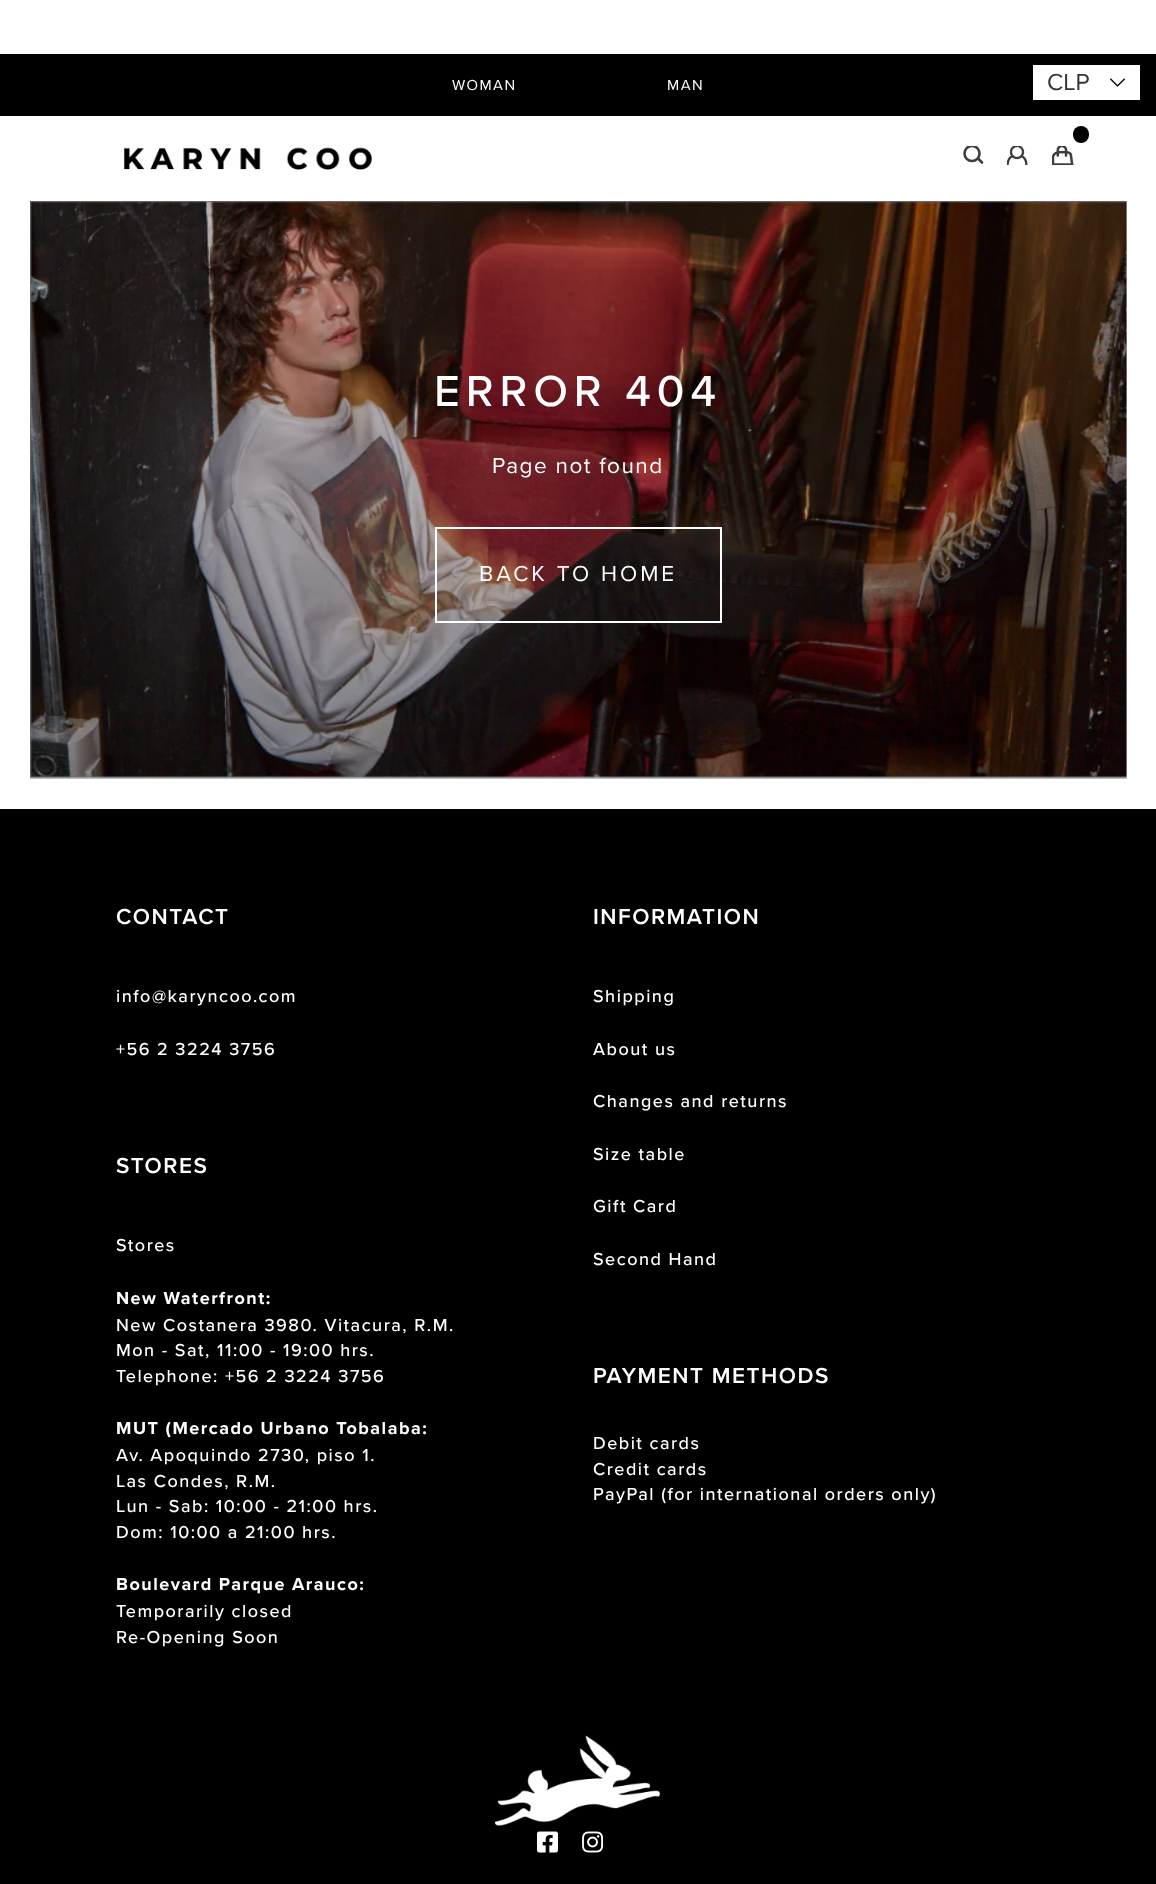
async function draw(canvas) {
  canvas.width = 1156
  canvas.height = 1884
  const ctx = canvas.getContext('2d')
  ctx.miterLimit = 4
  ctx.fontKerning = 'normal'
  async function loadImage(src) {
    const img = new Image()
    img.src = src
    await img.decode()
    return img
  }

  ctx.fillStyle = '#fff'
  ctx.fillRect(0, 0, 1156, 1884)
  ctx.fillStyle = '#000'
  ctx.fillRect(0, 54, 1156, 62)
  ctx.letterSpacing = '1.5px'
  ctx.font = '15px Proxima Nova'
  ctx.fillStyle = '#fff'
  ctx.fillText('WOMAN', 452, 90)
  ctx.fillText('MAN', 667, 90)
  ctx.fillRect(1033, 65, 107, 35)
  ctx.drawImage(await loadImage('image0.png'), 1110, 78, 15, 9)
  ctx.letterSpacing = '0px'
  ctx.font = '24px Proxima Nova'
  ctx.fillStyle = '#333'
  ctx.fillText('CLP', 1047, 90)
  ctx.drawImage(await loadImage('image1.png'), 124, 147, 248, 23)
  ctx.save()
  ctx.beginPath()
  ctx.rect(963, 146, 21, 19)
  ctx.clip()
  ctx.beginPath()
  ctx.arc(972, 153.5, 7.5, 0, 2 * Math.PI)
  ctx.strokeStyle = '#3e3e3e'
  ctx.lineWidth = 2.6
  ctx.stroke()
  ctx.restore()
  ctx.beginPath()
  ctx.moveTo(982, 162.5)
  ctx.lineTo(978, 158.5)
  ctx.strokeStyle = '#3e3e3e'
  ctx.lineWidth = 2.6
  ctx.lineCap = 'round'
  ctx.lineJoin = 'round'
  ctx.stroke()
  ctx.drawImage(await loadImage('image2.png'), 1007, 146, 21, 19)
  ctx.fillStyle = '#000'
  ctx.beginPath()
  ctx.roundRect(1073, 126, 16, 17, 8)
  ctx.fill()
  ctx.drawImage(await loadImage('image3.png'), 1052, 146, 22, 19)
  ctx.fillStyle = '#c8c9ca'
  ctx.fillRect(30, 201, 1097, 578)
  ctx.drawImage(await loadImage('image4.png'), 30, 201, 1097, 578)
  ctx.letterSpacing = '6px'
  ctx.font = '500 45px Proxima Nova'
  ctx.fillStyle = '#fff'
  ctx.fillText('ERROR 404', 434, 406)
  ctx.letterSpacing = '1.5px'
  ctx.font = '22.5px Proxima Nova'
  ctx.fillText('Page not found', 492, 473)
  ctx.strokeStyle = '#fff'
  ctx.lineWidth = 2
  ctx.lineJoin = 'miter'
  ctx.strokeRect(436, 528, 285, 94)
  ctx.letterSpacing = '3px'
  ctx.fillText('BACK TO HOME', 479, 581)
  ctx.fillStyle = '#000'
  ctx.fillRect(0, 809, 1156, 1075)
  ctx.letterSpacing = '1.5px'
  ctx.font = '600 22.5px Proxima Nova'
  ctx.fillStyle = '#fff'
  ctx.fillText('CONTACT', 116, 924)
  ctx.font = '500 18px Proxima Nova'
  ctx.fillText('info@karyncoo.com', 116, 1002)
  ctx.fillText('+56 2 3224 3756', 116, 1055)
  ctx.font = '600 22.5px Proxima Nova'
  ctx.fillText('INFORMATION', 593, 924)
  ctx.font = '500 18px Proxima Nova'
  ctx.fillText('Shipping', 593, 1002)
  ctx.fillText('About us', 593, 1055)
  ctx.fillText('Changes and returns', 593, 1107)
  ctx.fillText('Size table', 593, 1160)
  ctx.fillText('Gift Card', 593, 1212)
  ctx.fillText('Second Hand', 593, 1265)
  ctx.font = '600 22.5px Proxima Nova'
  ctx.fillText('STORES', 116, 1173)
  ctx.font = '500 18px Proxima Nova'
  ctx.fillText('Stores', 116, 1251)
  ctx.font = 'bold 18px Proxima Nova'
  ctx.fillText('New Waterfront:', 116, 1304)
  ctx.font = '500 18px Proxima Nova'
  ctx.fillText('New Costanera 3980. Vitacura, R.M.', 116, 1331)
  ctx.fillText('Mon - Sat, 11:00 - 19:00 hrs.', 116, 1356)
  ctx.fillText('Telephone: +56 2 3224 3756', 116, 1382)
  ctx.font = 'bold 18px Proxima Nova'
  ctx.fillText('MUT (Mercado Urbano Tobalaba:', 116, 1434)
  ctx.font = '500 18px Proxima Nova'
  ctx.fillText('Av. Apoquindo 2730, piso 1.', 116, 1461)
  ctx.fillText('Las Condes, R.M.', 116, 1487)
  ctx.fillText('Lun - Sab: 10:00 - 21:00 hrs.', 116, 1512)
  ctx.fillText('Dom: 10:00 a 21:00 hrs.', 116, 1538)
  ctx.font = 'bold 18px Proxima Nova'
  ctx.fillText('Boulevard Parque Arauco:', 116, 1590)
  ctx.font = '500 18px Proxima Nova'
  ctx.fillText('Temporarily closed', 116, 1617)
  ctx.fillText('Re-Opening Soon', 116, 1643)
  ctx.font = '600 22.5px Proxima Nova'
  ctx.fillText('PAYMENT METHODS', 593, 1383)
  ctx.font = '500 18px Proxima Nova'
  ctx.fillText('Debit cards', 593, 1449)
  ctx.fillText('Credit cards', 593, 1475)
  ctx.fillText('PayPal (for international orders only)', 593, 1500)
  ctx.drawImage(await loadImage('image5.png'), 495, 1735, 165, 91)
  ctx.drawImage(await loadImage('image6.png'), 537, 1831, 21, 22)
  ctx.drawImage(await loadImage('image7.png'), 582, 1831, 22, 22)
}

draw(document.querySelector('canvas'))
